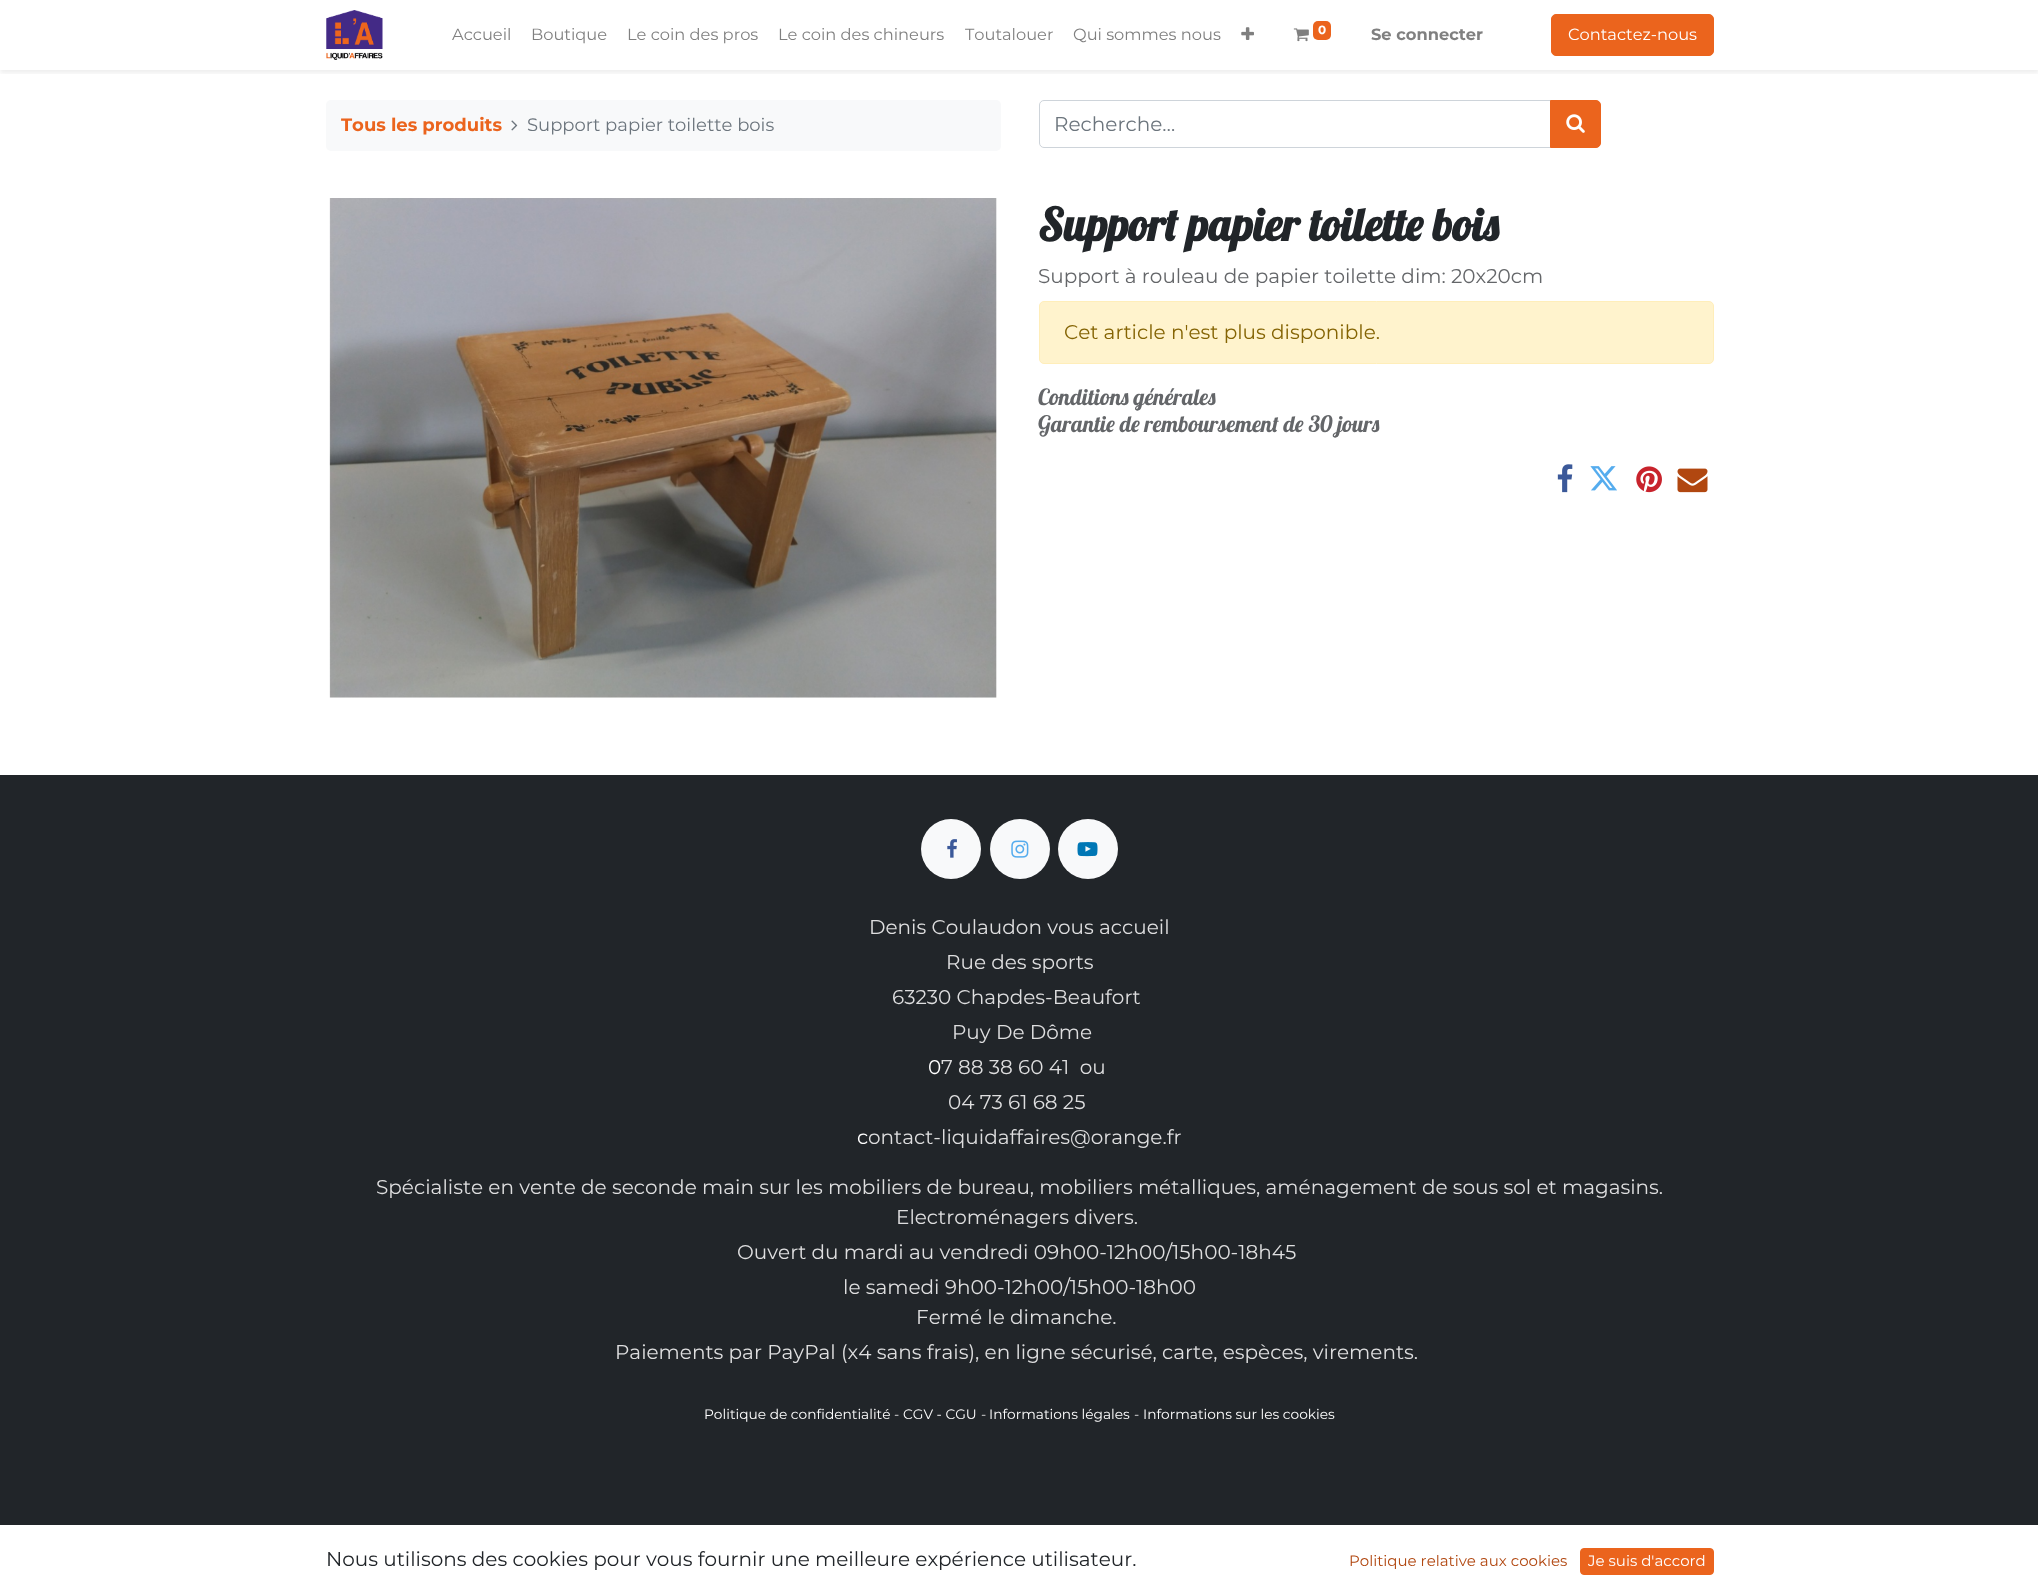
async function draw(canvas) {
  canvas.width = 2038
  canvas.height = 1595
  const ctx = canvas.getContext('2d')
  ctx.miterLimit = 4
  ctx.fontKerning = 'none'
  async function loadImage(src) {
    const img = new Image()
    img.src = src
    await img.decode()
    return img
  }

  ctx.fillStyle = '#fff'
  ctx.fillRect(0, 0, 2038, 1595)
  ctx.save()
  ctx.beginPath()
  ctx.rect(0, 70, 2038, 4)
  ctx.clip()
  ctx.fillStyle = '#00000012'
  ctx.filter = 'blur(2.5px)'
  ctx.beginPath()
  ctx.rect(0, 3, 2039, 70)
  ctx.fill()
  ctx.filter = 'none'
  ctx.restore()
  ctx.drawImage(await loadImage('image0.png'), 326, 10, 57, 50)
  ctx.font = '16.25px Montserrat'
  ctx.fillStyle = '#808080'
  ctx.fillText('Accueil', 452, 40)
  ctx.fillText('Boutique', 531, 40)
  ctx.fillText('Le coin des pros', 627, 40)
  ctx.fillText('Le coin des chineurs', 778, 40)
  ctx.fillText('Toutalouer', 965, 40)
  ctx.fillText('Qui sommes nous', 1073, 40)
  ctx.drawImage(await loadImage('image1.png'), 1241, 27, 13, 13)
  ctx.drawImage(await loadImage('image2.png'), 1293, 28, 16, 14)
  ctx.fillStyle = '#eb641d'
  ctx.beginPath()
  ctx.roundRect(1313, 21, 18, 19, 5)
  ctx.fill()
  ctx.font = 'bold 12px Montserrat'
  ctx.fillStyle = '#fff'
  ctx.fillText('0', 1318, 34)
  ctx.font = 'bold 16.25px Montserrat'
  ctx.fillStyle = '#808080'
  ctx.fillText('Se connecter', 1371, 40)
  ctx.fillStyle = '#eb641d'
  ctx.beginPath()
  ctx.roundRect(1551.5, 14.5, 162, 41, 4.5)
  ctx.fill()
  ctx.strokeStyle = '#eb641d'
  ctx.stroke()
  ctx.font = '16.25px Montserrat'
  ctx.fillStyle = '#fff'
  ctx.fillText('Contactez-nous', 1568, 40)
  ctx.fillStyle = '#f8f9fa'
  ctx.beginPath()
  ctx.roundRect(326, 100, 675, 51, 5)
  ctx.fill()
  ctx.font = 'bold 18px Montserrat'
  ctx.fillStyle = '#eb641d'
  ctx.fillText('Tous les produits', 341, 131)
  ctx.drawImage(await loadImage('image3.png'), 511, 120, 7, 11)
  ctx.font = '18px Montserrat'
  ctx.fillStyle = '#6c757d'
  ctx.fillText('Support papier toilette bois', 527, 131)
  ctx.beginPath()
  ctx.roundRect(1039.5, 100.5, 511, 47, [4.5, 0, 0, 4.5])
  ctx.strokeStyle = '#ced4da'
  ctx.stroke()
  ctx.font = '20px Montserrat'
  ctx.fillText('Recherche…', 1054, 131)
  ctx.fillStyle = '#eb641d'
  ctx.beginPath()
  ctx.roundRect(1550.5, 100.5, 50, 47, [0, 4.5, 4.5, 0])
  ctx.fill()
  ctx.strokeStyle = '#eb641d'
  ctx.stroke()
  ctx.drawImage(await loadImage('image4.png'), 1566, 114, 19, 19)
  ctx.drawImage(await loadImage('image5.png'), 329, 198, 668, 500)
  ctx.font = 'bold 45px Lobster'
  ctx.fillStyle = '#212529'
  ctx.fillText('Support papier toilette bois', 1038, 241)
  ctx.font = '20px Montserrat'
  ctx.fillStyle = '#646669'
  ctx.fillText('Support à rouleau de papier toilette dim: 20x20cm', 1038, 283)
  ctx.fillStyle = '#fff3cd'
  ctx.beginPath()
  ctx.roundRect(1039.5, 301.5, 674, 62, 4.5)
  ctx.fill()
  ctx.strokeStyle = '#ffeeba'
  ctx.stroke()
  ctx.fillStyle = '#856404'
  ctx.fillText('Cet article n\'est plus disponible.', 1064, 339)
  ctx.font = '22.5px Lobster'
  ctx.fillStyle = '#646669'
  ctx.fillText('Conditions générales', 1038, 405)
  ctx.fillText('Garantie de remboursement de 30 jours', 1038, 432)
  ctx.drawImage(await loadImage('image6.png'), 1557, 464, 16, 29)
  ctx.drawImage(await loadImage('image7.png'), 1590, 466, 27, 25)
  ctx.drawImage(await loadImage('image8.png'), 1636, 466, 26, 27)
  ctx.drawImage(await loadImage('image9.png'), 1677, 468, 31, 25)
  ctx.fillStyle = '#212529'
  ctx.fillRect(0, 775, 2038, 750)
  ctx.fillStyle = '#f8f9fa'
  ctx.beginPath()
  ctx.arc(951, 849, 30, 0, 2 * Math.PI)
  ctx.fill()
  ctx.drawImage(await loadImage('image10.png'), 947, 839, 10, 19)
  ctx.beginPath()
  ctx.arc(1020, 849, 30, 0, 2 * Math.PI)
  ctx.fill()
  ctx.drawImage(await loadImage('image11.png'), 1011, 840, 18, 18)
  ctx.beginPath()
  ctx.arc(1088, 849, 30, 0, 2 * Math.PI)
  ctx.fill()
  ctx.drawImage(await loadImage('image12.png'), 1077, 842, 21, 15)
  ctx.font = '20px Montserrat'
  ctx.fillStyle = '#dededf'
  ctx.fillText('Denis Coulaudon vous accueil', 869, 934)
  ctx.fillText('Rue des sports', 946, 969)
  ctx.fillText('63230 Chapdes-Beaufort', 892, 1004)
  ctx.fillText('Puy De Dôme', 952, 1039)
  ctx.fillStyle = '#fff'
  ctx.fillText('0', 928, 1074)
  ctx.fillStyle = '#dededf'
  ctx.fillText('7 88 38 60 41  ou', 941, 1074)
  ctx.fillText('04 73 61 68 25', 948, 1109)
  ctx.fillStyle = '#fff'
  ctx.fillText('c', 857, 1144)
  ctx.fillStyle = '#dededf'
  ctx.fillText('ontact-liquidaffaires@orange.fr', 868, 1144)
  ctx.fillText('Spécialiste en vente de seconde main sur les mobiliers de bureau, mobiliers métalliques, aménagement de sous sol et magasins.', 376, 1194)
  ctx.fillText('Electroménagers divers.', 896, 1224)
  ctx.fillText('Ouvert du mardi au vendredi 09h00-12h00/15h00-18h45', 737, 1259)
  ctx.fillText('le samedi 9h00-12h00/15h00-18h00', 843, 1294)
  ctx.fillText('Fermé le dimanche.', 916, 1324)
  ctx.fillText('Paiements par PayPal (x4 sans frais), en ligne sécurisé, carte, espèces, virements.', 615, 1359)
  ctx.font = '13.75px Montserrat'
  ctx.fillStyle = '#fff'
  ctx.fillText('Politique de confidentialité', 704, 1419)
  ctx.fillStyle = '#dededf'
  ctx.fillText('-', 894, 1419)
  ctx.fillStyle = '#fff'
  ctx.fillText('CGV - CGU', 903, 1419)
  ctx.fillStyle = '#dededf'
  ctx.fillText('-', 981, 1419)
  ctx.fillStyle = '#fff'
  ctx.fillText('Informations légales', 989, 1419)
  ctx.fillStyle = '#dededf'
  ctx.fillText('-', 1134, 1419)
  ctx.fillStyle = '#fff'
  ctx.fillText('Informations sur les cookies', 1143, 1419)
  ctx.font = '20px Montserrat'
  ctx.fillStyle = '#212529'
  ctx.fillText('Nous utilisons des cookies pour vous fournir une meilleure expérience utilisateur.', 326, 1566)
  ctx.font = '15px Montserrat'
  ctx.fillStyle = '#b14710'
  ctx.fillText('Politique relative aux cookies', 1349, 1566)
  ctx.fillStyle = '#eb641d'
  ctx.beginPath()
  ctx.roundRect(1580.5, 1548.5, 133, 26, 3.5)
  ctx.fill()
  ctx.strokeStyle = '#eb641d'
  ctx.stroke()
  ctx.fillStyle = '#fff'
  ctx.fillText('Je suis d\'accord', 1588, 1566)
}

draw(document.querySelector('canvas'))
